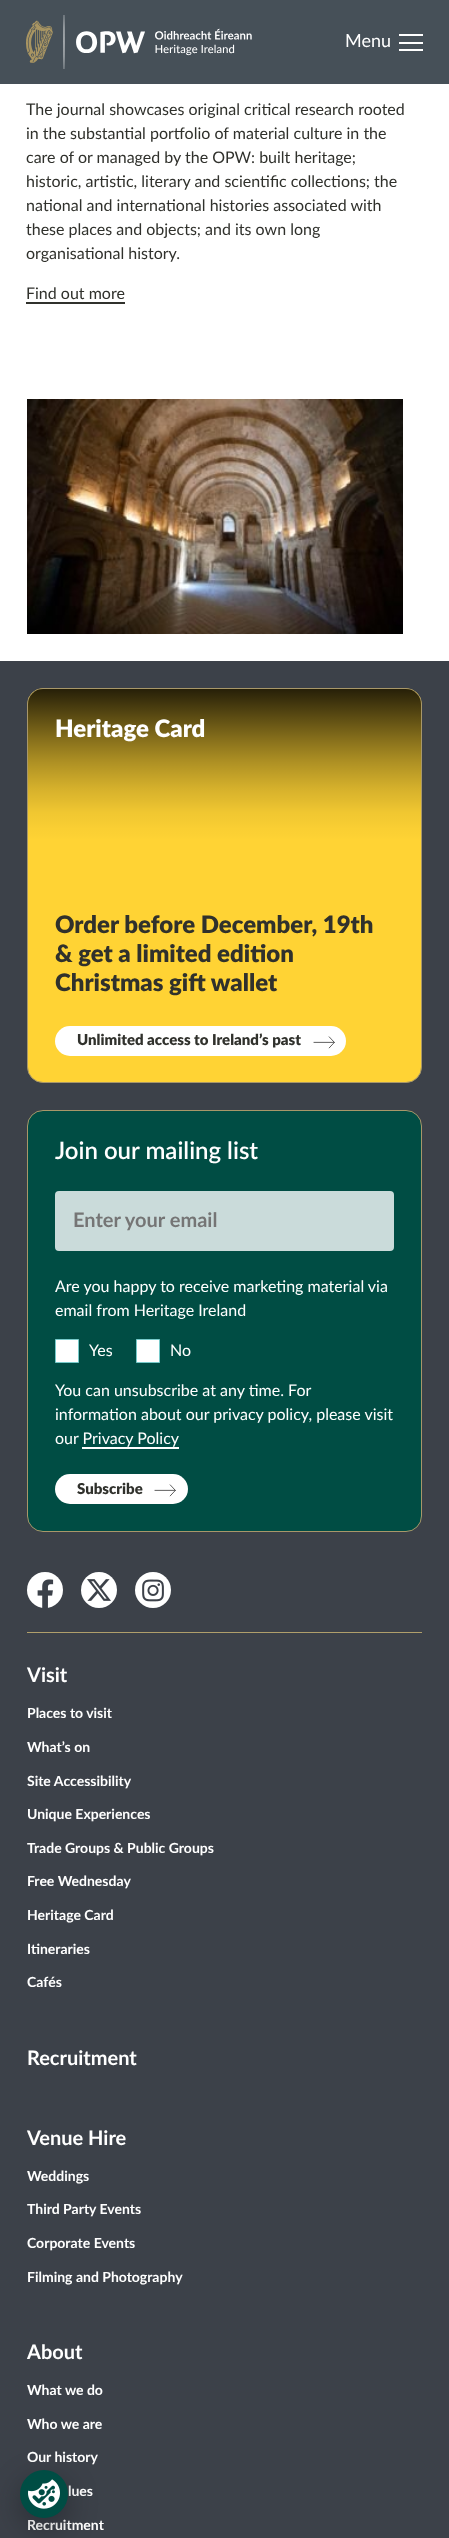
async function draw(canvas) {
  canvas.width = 449
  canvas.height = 2538
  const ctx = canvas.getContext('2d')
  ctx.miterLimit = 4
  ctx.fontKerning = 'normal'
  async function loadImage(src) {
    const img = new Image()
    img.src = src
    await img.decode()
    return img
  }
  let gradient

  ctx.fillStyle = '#fff'
  ctx.fillRect(0, 0, 449, 2538)
  ctx.fillStyle = '#465058'
  ctx.fillRect(0, 0, 449, 84)
  ctx.drawImage(await loadImage('image0.png'), 26, 15, 226, 54)
  ctx.font = '18px Lato'
  ctx.fillStyle = '#fff'
  ctx.fillText('Menu', 345, 47)
  ctx.fillRect(399, 34, 24, 2)
  ctx.fillRect(399, 42, 24, 2)
  ctx.fillRect(399, 49, 24, 2)
  ctx.font = '16px Lato'
  ctx.fillStyle = '#30312c'
  ctx.fillText('The journal showcases original critical research rooted', 26, 115)
  ctx.fillText('in the substantial portfolio of material culture in the', 26, 139)
  ctx.fillText('care of or managed by the OPW: built heritage;', 26, 163)
  ctx.fillText('historic, artistic, literary and scientific collections; the', 26, 187)
  ctx.fillText('national and international histories associated with', 26, 211)
  ctx.fillText('these places and objects; and its own long', 26, 235)
  ctx.fillText('organisational history.', 26, 259)
  ctx.fillText('Find out more', 26, 299)
  ctx.fillRect(26, 302, 99, 2)
  ctx.drawImage(await loadImage('image1.png'), 27, 399, 376, 235)
  ctx.fillStyle = '#3c4149'
  ctx.fillRect(0, 661, 449, 1877)
  ctx.fillStyle = '#ffd334'
  ctx.beginPath()
  ctx.roundRect(27.5, 688.5, 394, 394, 15.5)
  ctx.fill()
  ctx.strokeStyle = '#a89769'
  ctx.stroke()
  gradient = ctx.createLinearGradient(225, 689, 225, 843)
  gradient.addColorStop(0, '#000000d9')
  gradient.addColorStop(0.19, '#000000a1')
  gradient.addColorStop(0.34, '#00000075')
  gradient.addColorStop(0.47, '#00000052')
  gradient.addColorStop(0.56, '#0000003d')
  gradient.addColorStop(0.65, '#00000029')
  gradient.addColorStop(0.73, '#0000001c')
  gradient.addColorStop(0.8, '#0000000f')
  gradient.addColorStop(0.86, '#0000000a')
  gradient.addColorStop(0.91, '#00000005')
  gradient.addColorStop(0.95, '#00000003')
  gradient.addColorStop(0.98, '#00000000')
  gradient.addColorStop(1, '#00000000')
  ctx.fillStyle = gradient
  ctx.beginPath()
  ctx.roundRect(28, 689, 393, 154, [15, 15, 0, 0])
  ctx.fill()
  ctx.font = '900 24px Lato'
  ctx.fillStyle = '#fff'
  ctx.fillText('Heritage Card', 55, 737)
  ctx.fillStyle = '#30312c'
  ctx.fillText('Order before December, 19th', 55, 933)
  ctx.fillText('& get a limited edition', 55, 962)
  ctx.fillText('Christmas gift wallet', 55, 991)
  ctx.fillStyle = '#fff'
  ctx.beginPath()
  ctx.roundRect(55, 1026, 291, 30, 15)
  ctx.fill()
  ctx.font = '900 15px Lato'
  ctx.fillStyle = '#30312c'
  ctx.fillText('Unlimited access to Ireland’s past', 77, 1045)
  ctx.drawImage(await loadImage('image2.png'), 313, 1036, 22, 13)
  ctx.fillStyle = '#004d44'
  ctx.beginPath()
  ctx.roundRect(27.5, 1110.5, 394, 421, 15.5)
  ctx.fill()
  ctx.stroke()
  ctx.font = '600 24px Lato'
  ctx.fillStyle = '#fff'
  ctx.fillText('Join our mailing list', 55, 1159)
  ctx.fillStyle = '#cadbda'
  ctx.beginPath()
  ctx.roundRect(55, 1191, 339, 60, 4)
  ctx.fill()
  ctx.font = 'bold 20px Lato'
  ctx.fillStyle = '#757575'
  ctx.fillText('Enter your email', 73, 1227)
  ctx.font = '16px Lato'
  ctx.fillStyle = '#fff'
  ctx.fillText('Are you happy to receive marketing material via', 55, 1292)
  ctx.fillText('email from Heritage Ireland', 55, 1316)
  ctx.beginPath()
  ctx.rect(55.5, 1339.5, 23, 23)
  ctx.fill()
  ctx.strokeStyle = '#76caca'
  ctx.stroke()
  ctx.fillText('Yes', 89, 1356)
  ctx.beginPath()
  ctx.rect(136.5, 1339.5, 23, 23)
  ctx.fill()
  ctx.stroke()
  ctx.fillText('No', 170, 1356)
  ctx.fillText('You can unsubscribe at any time. For', 55, 1396)
  ctx.fillText('information about our privacy policy, please visit', 55, 1420)
  ctx.fillText('our Privacy Policy', 55, 1444)
  ctx.fillRect(82, 1447, 97, 2)
  ctx.beginPath()
  ctx.roundRect(55, 1474, 133, 30, 15)
  ctx.fill()
  ctx.font = '900 15px Lato'
  ctx.fillStyle = '#30312c'
  ctx.fillText('Subscribe', 77, 1494)
  ctx.drawImage(await loadImage('image2.png'), 154, 1484, 22, 13)
  ctx.fillStyle = '#fff'
  ctx.beginPath()
  ctx.arc(45, 1590, 18, 0, 2 * Math.PI)
  ctx.fill()
  ctx.drawImage(await loadImage('image3.png'), 37, 1579, 17, 29)
  ctx.beginPath()
  ctx.arc(99, 1590, 18, 0, 2 * Math.PI)
  ctx.fill()
  ctx.drawImage(await loadImage('image4.png'), 87, 1579, 24, 22)
  ctx.beginPath()
  ctx.arc(153, 1590, 18, 0, 2 * Math.PI)
  ctx.fill()
  ctx.drawImage(await loadImage('image5.png'), 142, 1579, 22, 23)
  ctx.fillStyle = '#b09f6b'
  ctx.fillRect(27, 1632, 395, 1)
  ctx.font = 'bold 20px Lato'
  ctx.fillStyle = '#fff'
  ctx.fillText('Visit', 27, 1682)
  ctx.font = 'bold 14px Lato'
  ctx.fillText('Places to visit', 27, 1718)
  ctx.fillText('What’s on', 27, 1752)
  ctx.fillText('Site Accessibility', 27, 1786)
  ctx.fillText('Unique Experiences', 27, 1819)
  ctx.fillText('Trade Groups & Public Groups', 27, 1853)
  ctx.fillText('Free Wednesday', 27, 1886)
  ctx.fillText('Heritage Card', 27, 1920)
  ctx.fillText('Itineraries', 27, 1954)
  ctx.fillText('Cafés', 27, 1987)
  ctx.font = 'bold 20px Lato'
  ctx.fillText('Recruitment', 27, 2065)
  ctx.fillText('Venue Hire', 27, 2145)
  ctx.font = 'bold 14px Lato'
  ctx.fillText('Weddings', 27, 2181)
  ctx.fillText('Third Party Events', 27, 2214)
  ctx.fillText('Corporate Events', 27, 2248)
  ctx.fillText('Filming and Photography', 27, 2282)
  ctx.font = 'bold 20px Lato'
  ctx.fillText('About', 27, 2359)
  ctx.font = 'bold 14px Lato'
  ctx.fillText('What we do', 27, 2395)
  ctx.fillText('Who we are', 27, 2429)
  ctx.fillText('Our history', 27, 2462)
  ctx.fillText('lues', 68, 2496)
  ctx.fillText('Recruitment', 27, 2530)
  ctx.fillStyle = '#0000024d'
  ctx.filter = 'blur(15px)'
  ctx.beginPath()
  ctx.roundRect(20, 2480, 48, 48, 24)
  ctx.fill()
  ctx.filter = 'none'
  ctx.fillStyle = '#004d44'
  ctx.beginPath()
  ctx.arc(44, 2494, 24, 0, 2 * Math.PI)
  ctx.fill()
  ctx.drawImage(await loadImage('image6.png'), 28, 2479, 32, 30)
}

draw(document.querySelector('canvas'))
